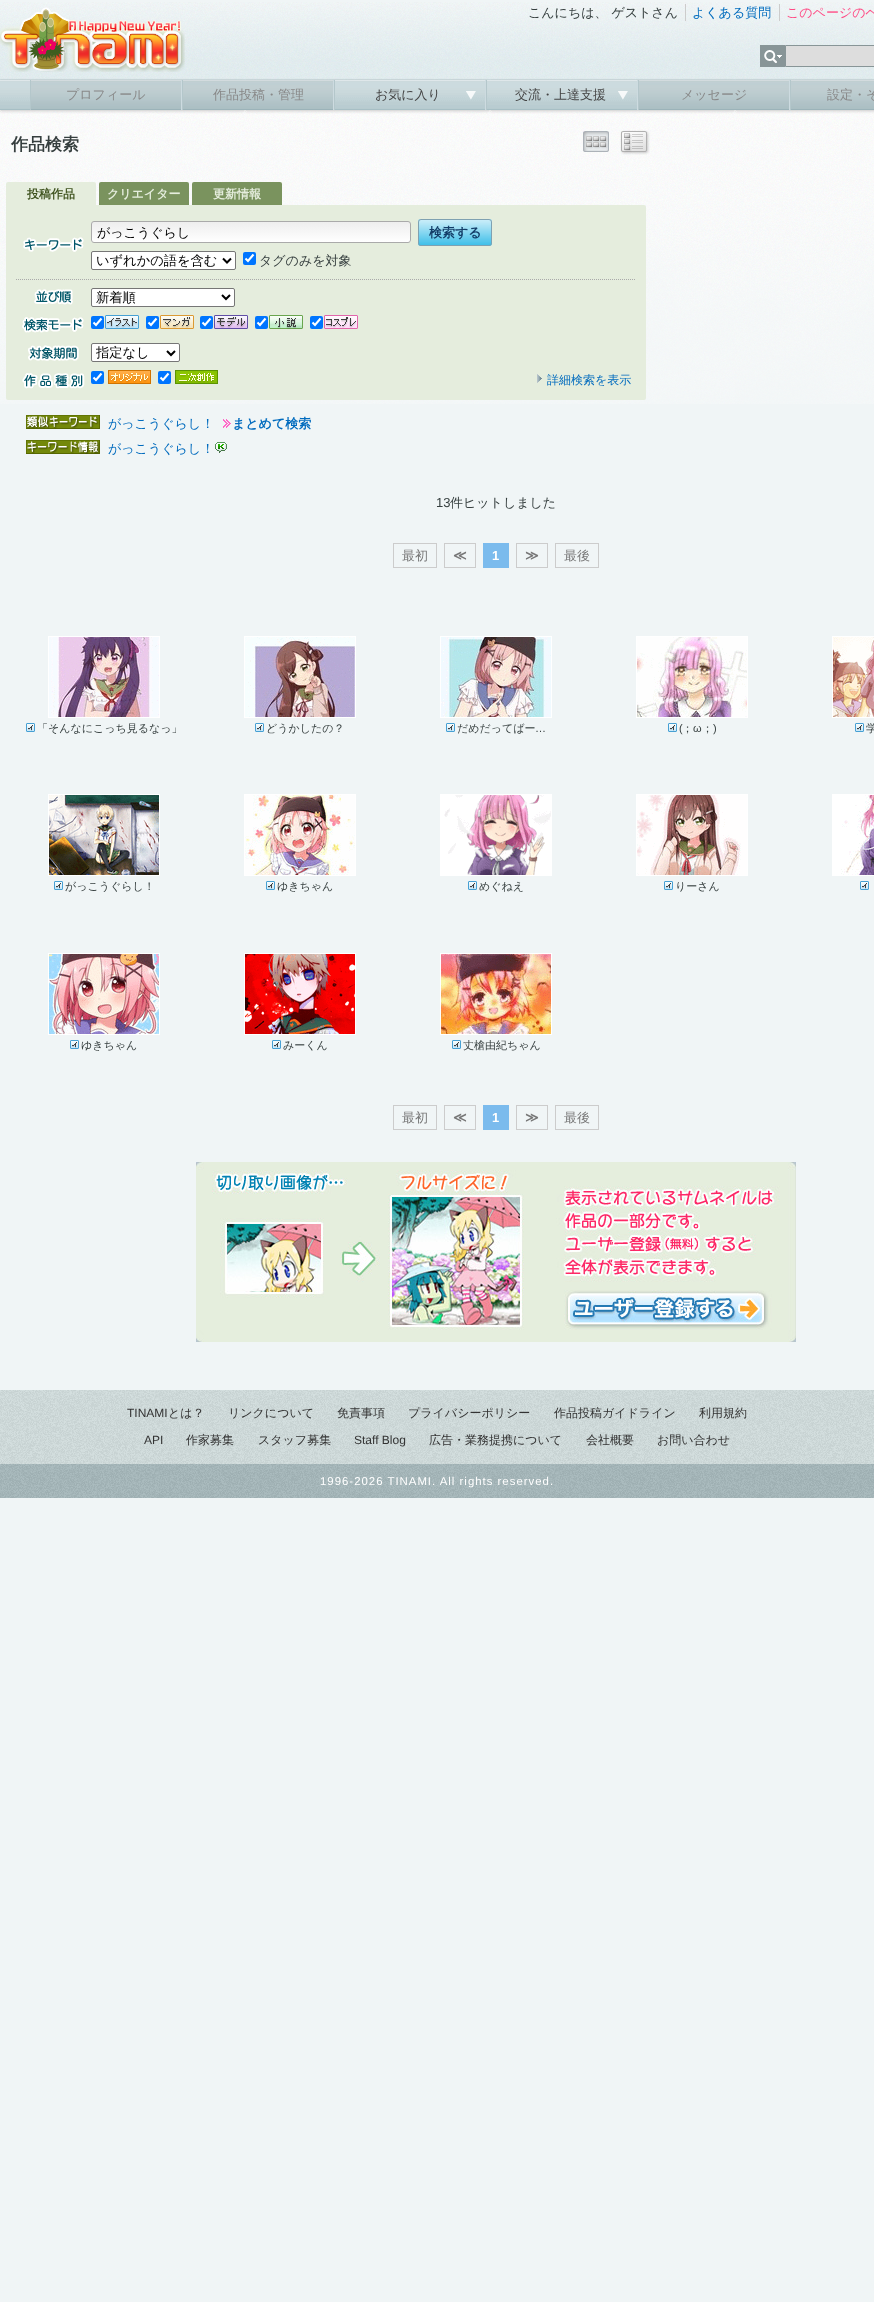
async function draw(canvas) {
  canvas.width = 874
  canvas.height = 2302
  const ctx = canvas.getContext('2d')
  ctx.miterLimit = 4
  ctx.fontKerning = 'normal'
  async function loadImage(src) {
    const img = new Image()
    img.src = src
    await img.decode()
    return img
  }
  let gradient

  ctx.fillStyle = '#f0f5f6'
  ctx.fillRect(0, 0, 874, 2302)
  ctx.drawImage(await loadImage('image0.png'), 0, 2, 874, 402)
  ctx.drawImage(await loadImage('image1.png'), 0, 7, 185, 65)
  ctx.font = '500 13px WenQuanYi Zen Hei'
  ctx.fillStyle = '#363f3f'
  ctx.fillText('こんにちは、 ゲストさん', 528, 17)
  ctx.fillStyle = '#006bbe'
  ctx.fillText('よくある質問', 692, 17)
  ctx.fillStyle = '#ccc'
  ctx.fillRect(685, 4, 1, 17)
  ctx.fillStyle = '#ff4b85'
  ctx.fillText('このページのヘ', 786, 17)
  ctx.fillStyle = '#ccc'
  ctx.fillRect(779, 4, 1, 17)
  ctx.drawImage(await loadImage('image2.png'), 760, 45, 25, 22)
  ctx.fillStyle = '#ddd'
  ctx.beginPath()
  ctx.rect(785.5, 45.5, 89, 21)
  ctx.fill()
  ctx.strokeStyle = '#889597'
  ctx.stroke()
  ctx.drawImage(await loadImage('image3.png'), 31, 80, 150, 30)
  ctx.fillStyle = '#cddbe0'
  ctx.fillRect(181, 80, 1, 30)
  ctx.fillStyle = '#b4c7cb'
  ctx.fillRect(30, 80, 1, 30)
  ctx.fillStyle = '#888'
  ctx.fillText('プロフィール', 66, 99)
  ctx.drawImage(await loadImage('image3.png'), 183, 80, 150, 30)
  ctx.fillStyle = '#cddbe0'
  ctx.fillRect(333, 80, 1, 30)
  ctx.fillStyle = '#b4c7cb'
  ctx.fillRect(182, 80, 1, 30)
  ctx.fillStyle = '#888'
  ctx.fillText('作品投稿・管理', 213, 99)
  ctx.drawImage(await loadImage('image4.png'), 466, 91, 10, 9)
  ctx.fillStyle = '#cddbe0'
  ctx.fillRect(485, 80, 1, 30)
  ctx.fillStyle = '#b4c7cb'
  ctx.fillRect(334, 80, 1, 30)
  ctx.fillStyle = '#444'
  ctx.fillText('お気に入り', 375, 99)
  ctx.drawImage(await loadImage('image4.png'), 618, 91, 10, 9)
  ctx.fillStyle = '#cddbe0'
  ctx.fillRect(637, 80, 1, 30)
  ctx.fillStyle = '#b4c7cb'
  ctx.fillRect(486, 80, 1, 30)
  ctx.fillStyle = '#444'
  ctx.fillText('交流・上達支援', 515, 99)
  ctx.drawImage(await loadImage('image3.png'), 639, 80, 150, 30)
  ctx.fillStyle = '#cddbe0'
  ctx.fillRect(789, 80, 1, 30)
  ctx.fillStyle = '#b4c7cb'
  ctx.fillRect(638, 80, 1, 30)
  ctx.fillStyle = '#888'
  ctx.fillText('メッセージ', 681, 99)
  ctx.drawImage(await loadImage('image5.png'), 791, 80, 83, 30)
  ctx.fillStyle = '#b4c7cb'
  ctx.fillRect(790, 80, 1, 30)
  ctx.fillStyle = '#888'
  ctx.fillText('設定・そ', 827, 99)
  ctx.font = 'bold 17px WenQuanYi Zen Hei'
  ctx.fillStyle = '#363f3f'
  ctx.fillText('作品検索', 11, 150)
  ctx.drawImage(await loadImage('image6.png'), 583, 131, 26, 21)
  ctx.drawImage(await loadImage('image7.png'), 620, 130, 30, 25)
  ctx.fillStyle = '#e5eddd'
  ctx.beginPath()
  ctx.roundRect(6, 182, 90, 23, [2, 2, 0, 0])
  ctx.fill()
  ctx.font = 'bold 12px WenQuanYi Zen Hei'
  ctx.fillStyle = '#3f531f'
  ctx.fillText('投稿作品', 27, 198)
  ctx.fillStyle = '#7a935e'
  ctx.beginPath()
  ctx.roundRect(99, 182, 90, 23, [2, 2, 0, 0])
  ctx.fill()
  ctx.fillStyle = '#e5eddd'
  ctx.fillText('クリエイター', 107, 198)
  ctx.fillStyle = '#7a935e'
  ctx.beginPath()
  ctx.roundRect(192, 182, 90, 23, [2, 2, 0, 0])
  ctx.fill()
  ctx.fillStyle = '#e5eddd'
  ctx.fillText('更新情報', 213, 198)
  ctx.beginPath()
  ctx.roundRect(6, 205, 640, 195, [0, 2, 2, 2])
  ctx.fill()
  ctx.drawImage(await loadImage('image8.png'), 23, 237, 61, 15)
  ctx.save()
  ctx.beginPath()
  ctx.roundRect(91, 221, 320, 22, 3)
  ctx.clip()
  gradient = ctx.createLinearGradient(92, 222, 92, 242)
  gradient.addColorStop(0, '#eee')
  gradient.addColorStop(1, '#fff')
  ctx.fillStyle = gradient
  ctx.fillRect(91, 222, 320, 20)
  ctx.restore()
  ctx.beginPath()
  ctx.roundRect(91.5, 221.5, 319, 21, 2.5)
  ctx.strokeStyle = '#aaa'
  ctx.stroke()
  ctx.font = '500 13px WenQuanYi Zen Hei'
  ctx.fillStyle = '#000'
  ctx.fillText('がっこうぐらし', 97, 237)
  ctx.fillStyle = '#12b0e4'
  ctx.beginPath()
  ctx.roundRect(418, 219, 74, 27, 3)
  ctx.fill()
  ctx.drawImage(await loadImage('image9.png'), 418, 219, 74, 27)
  ctx.beginPath()
  ctx.roundRect(418.5, 219.5, 73, 26, 2.5)
  ctx.strokeStyle = '#7fa1b1'
  ctx.stroke()
  ctx.font = 'bold 13px WenQuanYi Zen Hei'
  ctx.fillStyle = '#133d68'
  ctx.fillText('検索する', 429, 237)
  ctx.fillStyle = '#fff'
  ctx.beginPath()
  ctx.roundRect(91.5, 251.5, 144, 18, 1.5)
  ctx.fill()
  ctx.strokeStyle = '#767676'
  ctx.stroke()
  ctx.beginPath()
  ctx.moveTo(223, 258.5)
  ctx.lineTo(227, 262.5)
  ctx.lineTo(231, 258.5)
  ctx.strokeStyle = '#000'
  ctx.lineWidth = 2
  ctx.stroke()
  ctx.font = '500 13.25px WenQuanYi Zen Hei'
  ctx.fillStyle = '#000'
  ctx.fillText('いずれかの語を含む', 96, 265)
  ctx.fillStyle = '#0075ff'
  ctx.beginPath()
  ctx.roundRect(243, 252, 13, 13, 2)
  ctx.fill()
  ctx.beginPath()
  ctx.moveTo(245.5, 258.5)
  ctx.lineTo(248, 261)
  ctx.lineTo(253.5, 254.5)
  ctx.strokeStyle = '#fff'
  ctx.lineWidth = 2.1
  ctx.stroke()
  ctx.font = '500 13px WenQuanYi Zen Hei'
  ctx.fillStyle = '#363f3f'
  ctx.fillText('タグのみを対象', 259, 265)
  ctx.beginPath()
  ctx.moveTo(16, 279.5)
  ctx.lineTo(636, 279.5)
  ctx.strokeStyle = '#aaa'
  ctx.lineWidth = 1
  ctx.setLineDash([1, 1])
  ctx.stroke()
  ctx.drawImage(await loadImage('image10.png'), 34, 289, 39, 16)
  ctx.fillStyle = '#fff'
  ctx.beginPath()
  ctx.roundRect(91.5, 288.5, 143, 18, 1.5)
  ctx.fill()
  ctx.strokeStyle = '#767676'
  ctx.setLineDash([])
  ctx.stroke()
  ctx.beginPath()
  ctx.moveTo(222, 295)
  ctx.lineTo(226, 299)
  ctx.lineTo(230, 295)
  ctx.strokeStyle = '#000'
  ctx.lineWidth = 2
  ctx.stroke()
  ctx.font = '500 13.25px WenQuanYi Zen Hei'
  ctx.fillStyle = '#000'
  ctx.fillText('新着順', 96, 302)
  ctx.drawImage(await loadImage('image11.png'), 22, 317, 62, 16)
  ctx.fillStyle = '#0075ff'
  ctx.beginPath()
  ctx.roundRect(91, 316, 13, 13, 2)
  ctx.fill()
  ctx.beginPath()
  ctx.moveTo(93.5, 322.5)
  ctx.lineTo(96, 325)
  ctx.lineTo(101.5, 318.5)
  ctx.strokeStyle = '#fff'
  ctx.lineWidth = 2.1
  ctx.stroke()
  ctx.drawImage(await loadImage('image12.png'), 105, 315, 34, 14)
  ctx.beginPath()
  ctx.roundRect(146, 316, 13, 13, 2)
  ctx.fill()
  ctx.beginPath()
  ctx.moveTo(148.5, 322.5)
  ctx.lineTo(151, 325)
  ctx.lineTo(156.5, 318.5)
  ctx.stroke()
  ctx.drawImage(await loadImage('image13.png'), 160, 315, 34, 14)
  ctx.beginPath()
  ctx.roundRect(200, 316, 13, 13, 2)
  ctx.fill()
  ctx.beginPath()
  ctx.moveTo(202.5, 322.5)
  ctx.lineTo(205, 325)
  ctx.lineTo(210.5, 318.5)
  ctx.stroke()
  ctx.drawImage(await loadImage('image14.png'), 214, 315, 34, 14)
  ctx.beginPath()
  ctx.roundRect(255, 316, 13, 13, 2)
  ctx.fill()
  ctx.beginPath()
  ctx.moveTo(257.5, 322.5)
  ctx.lineTo(260, 325)
  ctx.lineTo(265.5, 318.5)
  ctx.stroke()
  ctx.drawImage(await loadImage('image15.png'), 269, 315, 34, 14)
  ctx.beginPath()
  ctx.roundRect(310, 316, 13, 13, 2)
  ctx.fill()
  ctx.beginPath()
  ctx.moveTo(312.5, 322.5)
  ctx.lineTo(315, 325)
  ctx.lineTo(320.5, 318.5)
  ctx.stroke()
  ctx.drawImage(await loadImage('image16.png'), 324, 315, 34, 14)
  ctx.drawImage(await loadImage('image17.png'), 28, 345, 51, 16)
  ctx.fillStyle = '#fff'
  ctx.beginPath()
  ctx.roundRect(91.5, 343.5, 88, 18, 1.5)
  ctx.fill()
  ctx.strokeStyle = '#767676'
  ctx.lineWidth = 1
  ctx.stroke()
  ctx.beginPath()
  ctx.moveTo(167, 351)
  ctx.lineTo(171, 355)
  ctx.lineTo(175, 351)
  ctx.strokeStyle = '#000'
  ctx.lineWidth = 2
  ctx.stroke()
  ctx.fillStyle = '#000'
  ctx.fillText('指定なし', 96, 357)
  ctx.drawImage(await loadImage('image18.png'), 22, 373, 63, 16)
  ctx.fillStyle = '#0075ff'
  ctx.beginPath()
  ctx.roundRect(91, 371, 13, 13, 2)
  ctx.fill()
  ctx.beginPath()
  ctx.moveTo(93.5, 377.5)
  ctx.lineTo(96, 380)
  ctx.lineTo(101.5, 373.5)
  ctx.strokeStyle = '#fff'
  ctx.lineWidth = 2.1
  ctx.stroke()
  ctx.drawImage(await loadImage('image19.png'), 108, 370, 43, 14)
  ctx.beginPath()
  ctx.roundRect(158, 371, 13, 13, 2)
  ctx.fill()
  ctx.beginPath()
  ctx.moveTo(160.5, 377.5)
  ctx.lineTo(163, 380)
  ctx.lineTo(168.5, 373.5)
  ctx.stroke()
  ctx.drawImage(await loadImage('image20.png'), 175, 370, 43, 14)
  ctx.drawImage(await loadImage('image21.png'), 537, 374, 5, 9)
  ctx.font = '500 12px WenQuanYi Zen Hei'
  ctx.fillStyle = '#006bbe'
  ctx.fillText('詳細検索を表示', 547, 384)
  ctx.drawImage(await loadImage('image22.png'), 26, 415, 74, 14)
  ctx.font = '500 13px WenQuanYi Zen Hei'
  ctx.fillText('がっこうぐらし！', 108, 428)
  ctx.drawImage(await loadImage('image23.png'), 223, 419, 8, 9)
  ctx.font = 'bold 13px WenQuanYi Zen Hei'
  ctx.fillText('まとめて検索', 232, 428)
  ctx.drawImage(await loadImage('image24.png'), 26, 440, 74, 14)
  ctx.font = '500 13px WenQuanYi Zen Hei'
  ctx.fillText('がっこうぐらし！', 108, 453)
  ctx.drawImage(await loadImage('image25.png'), 215, 442, 12, 11)
  ctx.font = '13px Liberation Sans'
  ctx.fillStyle = '#363f3f'
  ctx.fillText('13', 436, 507)
  ctx.font = '500 13px WenQuanYi Zen Hei'
  ctx.fillText('件ヒットしました', 450, 507)
  ctx.strokeStyle = '#ccc'
  ctx.lineWidth = 1
  ctx.strokeRect(393.5, 543.5, 43, 24)
  ctx.fillStyle = '#777'
  ctx.fillText('最初', 402, 560)
  ctx.strokeRect(444.5, 543.5, 31, 24)
  ctx.font = 'bold 13px DejaVu Sans'
  ctx.fillText('≪', 453, 560)
  ctx.fillStyle = '#7bbbed'
  ctx.fillRect(483, 543, 26, 25)
  ctx.font = 'bold 13px Liberation Sans'
  ctx.fillStyle = '#fff'
  ctx.fillText('1', 492, 560)
  ctx.strokeRect(516.5, 543.5, 31, 24)
  ctx.font = 'bold 13px DejaVu Sans'
  ctx.fillStyle = '#777'
  ctx.fillText('≫', 525, 560)
  ctx.strokeRect(555.5, 543.5, 43, 24)
  ctx.font = '500 13px WenQuanYi Zen Hei'
  ctx.fillText('最後', 564, 560)
  ctx.strokeStyle = '#fff'
  ctx.strokeRect(48.5, 636.5, 111, 81)
  ctx.drawImage(await loadImage('image26.png'), 49, 637, 110, 80)
  ctx.drawImage(await loadImage('image27.png'), 26, 723, 9, 9)
  ctx.font = '500 11px WenQuanYi Zen Hei'
  ctx.fillStyle = '#363f3f'
  ctx.fillText('「そんなにこっち見るなっ」', 37, 732)
  ctx.strokeRect(244.5, 636.5, 111, 81)
  ctx.drawImage(await loadImage('image28.png'), 245, 637, 110, 80)
  ctx.drawImage(await loadImage('image27.png'), 255, 723, 9, 9)
  ctx.fillText('どうかしたの？', 266, 732)
  ctx.strokeRect(440.5, 636.5, 111, 81)
  ctx.drawImage(await loadImage('image29.png'), 441, 637, 110, 80)
  ctx.drawImage(await loadImage('image27.png'), 446, 723, 9, 9)
  ctx.fillText('だめだってばー', 457, 732)
  ctx.font = '11px Liberation Sans'
  ctx.fillText('…', 535, 732)
  ctx.strokeRect(636.5, 636.5, 111, 81)
  ctx.drawImage(await loadImage('image30.png'), 637, 637, 110, 80)
  ctx.drawImage(await loadImage('image27.png'), 668, 723, 9, 9)
  ctx.fillText('(', 679, 732)
  ctx.font = '500 11px WenQuanYi Zen Hei'
  ctx.fillText('；', 682, 732)
  ctx.font = '11px Liberation Sans'
  ctx.fillText('ω', 693, 732)
  ctx.font = '500 11px WenQuanYi Zen Hei'
  ctx.fillText('；', 702, 732)
  ctx.font = '11px Liberation Sans'
  ctx.fillText(')', 713, 732)
  ctx.strokeRect(832.5, 636.5, 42, 81)
  ctx.drawImage(await loadImage('image31.png'), 833, 637, 41, 80)
  ctx.drawImage(await loadImage('image27.png'), 855, 723, 9, 9)
  ctx.font = '500 11px WenQuanYi Zen Hei'
  ctx.fillText('学', 866, 732)
  ctx.strokeRect(48.5, 794.5, 111, 81)
  ctx.drawImage(await loadImage('image32.png'), 49, 795, 110, 80)
  ctx.drawImage(await loadImage('image27.png'), 54, 881, 9, 9)
  ctx.fillText('がっこうぐらし！', 65, 890)
  ctx.strokeRect(244.5, 794.5, 111, 81)
  ctx.drawImage(await loadImage('image33.png'), 245, 795, 110, 80)
  ctx.drawImage(await loadImage('image27.png'), 266, 881, 9, 9)
  ctx.fillText('ゆきちゃん', 277, 890)
  ctx.strokeRect(440.5, 794.5, 111, 81)
  ctx.drawImage(await loadImage('image34.png'), 441, 795, 110, 80)
  ctx.drawImage(await loadImage('image27.png'), 468, 881, 9, 9)
  ctx.fillText('めぐねえ', 479, 890)
  ctx.strokeRect(636.5, 794.5, 111, 81)
  ctx.drawImage(await loadImage('image35.png'), 637, 795, 110, 80)
  ctx.drawImage(await loadImage('image27.png'), 664, 881, 9, 9)
  ctx.fillText('りーさん', 675, 890)
  ctx.strokeRect(832.5, 794.5, 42, 81)
  ctx.drawImage(await loadImage('image36.png'), 833, 795, 41, 80)
  ctx.drawImage(await loadImage('image27.png'), 860, 881, 9, 9)
  ctx.strokeRect(48.5, 953.5, 111, 81)
  ctx.drawImage(await loadImage('image37.png'), 49, 954, 110, 80)
  ctx.drawImage(await loadImage('image27.png'), 70, 1040, 9, 9)
  ctx.fillText('ゆきちゃん', 81, 1049)
  ctx.strokeRect(244.5, 953.5, 111, 81)
  ctx.drawImage(await loadImage('image38.png'), 245, 954, 110, 80)
  ctx.drawImage(await loadImage('image27.png'), 272, 1040, 9, 9)
  ctx.fillText('みーくん', 283, 1049)
  ctx.strokeRect(440.5, 953.5, 111, 81)
  ctx.drawImage(await loadImage('image39.png'), 441, 954, 110, 80)
  ctx.drawImage(await loadImage('image27.png'), 452, 1040, 9, 9)
  ctx.fillText('丈槍由紀ちゃん', 463, 1049)
  ctx.strokeStyle = '#ccc'
  ctx.strokeRect(393.5, 1105.5, 43, 24)
  ctx.font = '500 13px WenQuanYi Zen Hei'
  ctx.fillStyle = '#777'
  ctx.fillText('最初', 402, 1122)
  ctx.strokeRect(444.5, 1105.5, 31, 24)
  ctx.font = 'bold 13px DejaVu Sans'
  ctx.fillText('≪', 453, 1122)
  ctx.fillStyle = '#7bbbed'
  ctx.fillRect(483, 1105, 26, 25)
  ctx.font = 'bold 13px Liberation Sans'
  ctx.fillStyle = '#fff'
  ctx.fillText('1', 492, 1122)
  ctx.strokeRect(516.5, 1105.5, 31, 24)
  ctx.font = 'bold 13px DejaVu Sans'
  ctx.fillStyle = '#777'
  ctx.fillText('≫', 525, 1122)
  ctx.strokeRect(555.5, 1105.5, 43, 24)
  ctx.font = '500 13px WenQuanYi Zen Hei'
  ctx.fillText('最後', 564, 1122)
  ctx.drawImage(await loadImage('image40.png'), 196, 1162, 600, 180)
  ctx.fillStyle = '#d6e2e3'
  ctx.fillRect(0, 1390, 874, 74)
  ctx.drawImage(await loadImage('image41.png'), 0, 1390, 874, 74)
  ctx.font = '12px Liberation Sans'
  ctx.fillStyle = '#333'
  ctx.fillText('TINAMI', 127, 1417)
  ctx.font = '500 12px WenQuanYi Zen Hei'
  ctx.fillText('とは？', 168, 1417)
  ctx.fillText('リンクについて', 228, 1417)
  ctx.fillText('免責事項', 337, 1417)
  ctx.fillText('プライバシーポリシー', 408, 1417)
  ctx.fillText('作品投稿ガイドライン', 554, 1417)
  ctx.fillText('利用規約', 699, 1417)
  ctx.font = '12px Liberation Sans'
  ctx.fillText('API', 144, 1444)
  ctx.font = '500 12px WenQuanYi Zen Hei'
  ctx.fillText('作家募集', 186, 1444)
  ctx.fillText('スタッフ募集', 258, 1444)
  ctx.font = '12px Liberation Sans'
  ctx.fillText('Staff Blog', 354, 1444)
  ctx.font = '500 12px WenQuanYi Zen Hei'
  ctx.fillText('広告・業務提携について', 429, 1444)
  ctx.fillText('会社概要', 586, 1444)
  ctx.fillText('お問い合わせ', 657, 1444)
  ctx.fillStyle = '#a9bcbf'
  ctx.fillRect(0, 1464, 874, 34)
  ctx.drawImage(await loadImage('image42.png'), 0, 1464, 874, 34)
  ctx.letterSpacing = '1px'
  ctx.font = '11.4px Liberation Sans'
  ctx.fillStyle = '#fff'
  ctx.fillText('1996-2026 TINAMI. All rights reserved.', 320, 1485)
}

draw(document.querySelector('canvas'))
